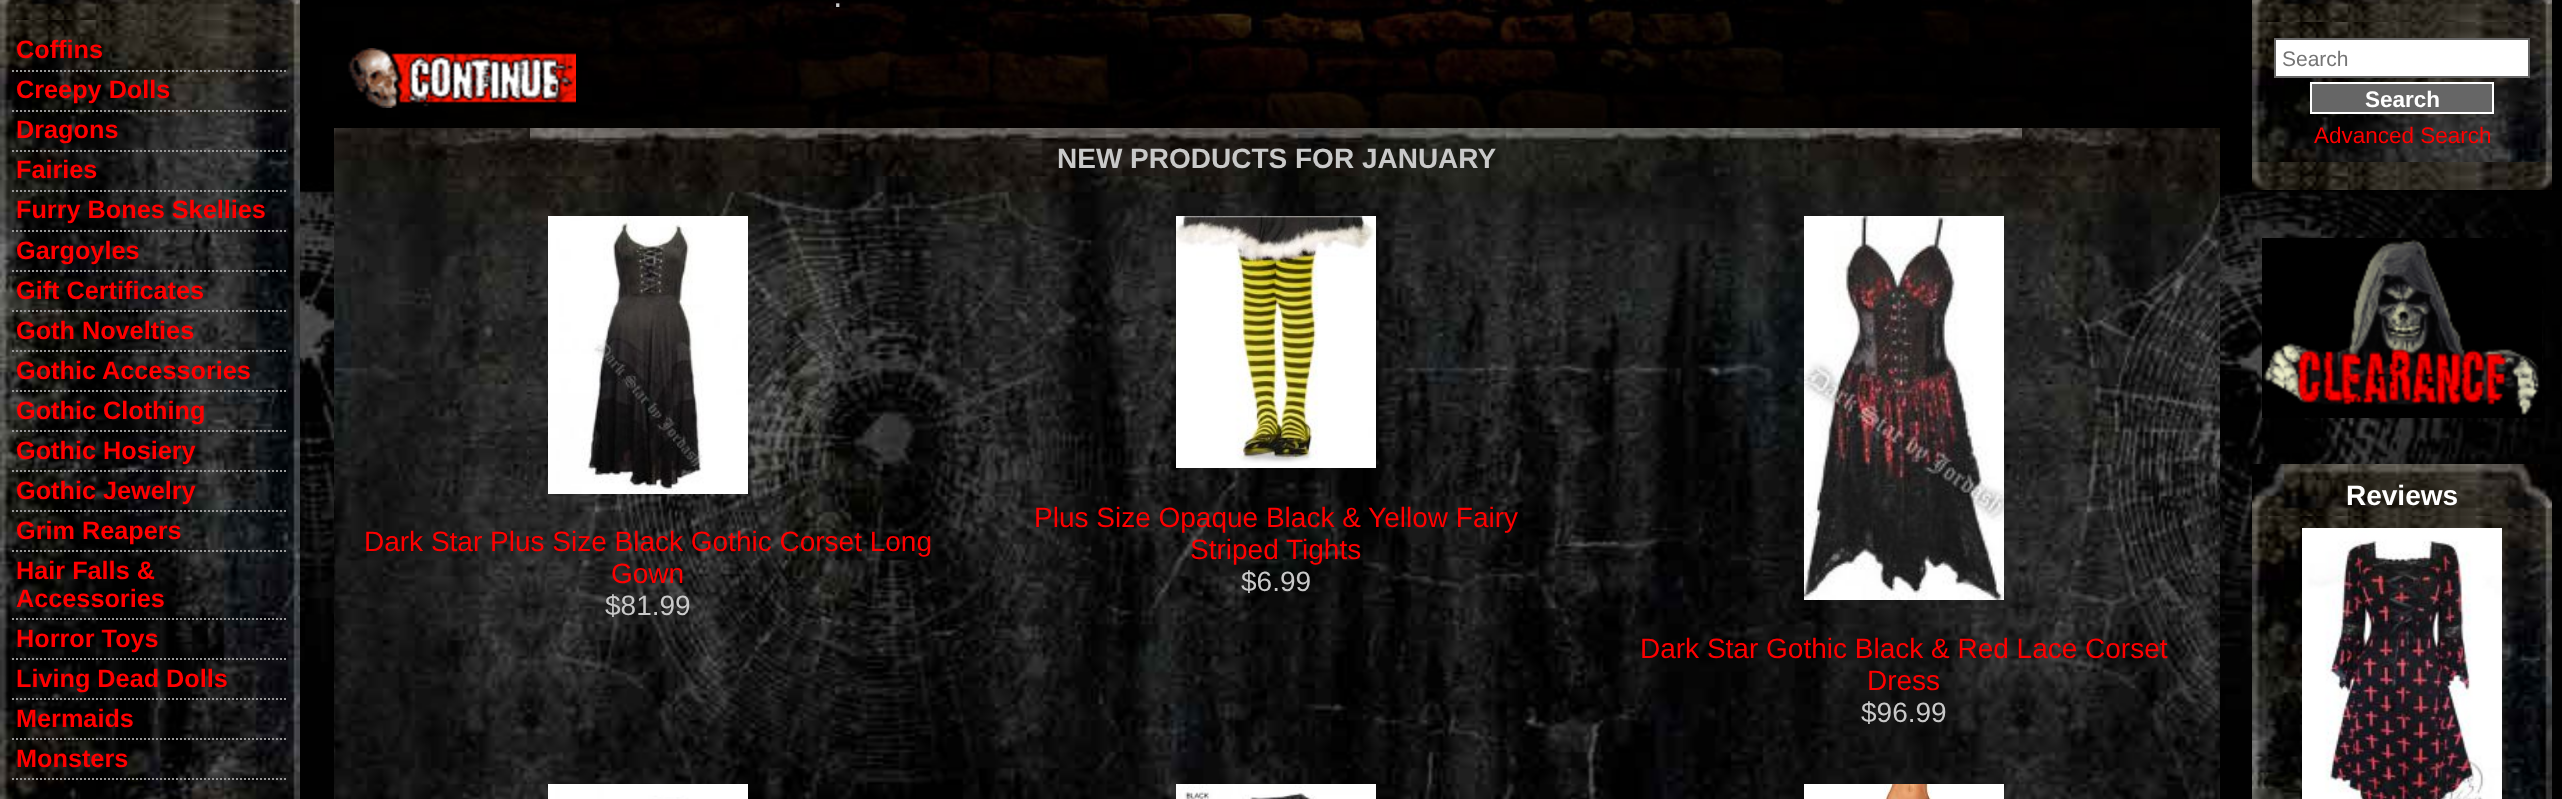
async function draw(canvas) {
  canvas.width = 2562
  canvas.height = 799
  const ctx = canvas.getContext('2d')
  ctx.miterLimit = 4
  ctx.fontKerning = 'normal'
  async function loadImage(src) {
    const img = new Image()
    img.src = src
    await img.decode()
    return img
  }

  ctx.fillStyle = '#fff'
  ctx.fillRect(0, 0, 2562, 799)
  ctx.drawImage(await loadImage('image0.png'), 300, 0, 2262, 799)
  ctx.drawImage(await loadImage('image1.png'), 0, 0, 300, 20)
  ctx.drawImage(await loadImage('image2.png'), 0, 20, 300, 779)
  ctx.beginPath()
  ctx.moveTo(12, 71)
  ctx.lineTo(288, 71)
  ctx.strokeStyle = '#999'
  ctx.lineWidth = 2
  ctx.setLineDash([2, 2])
  ctx.stroke()
  ctx.font = 'bold 25.25px Liberation Sans'
  ctx.fillStyle = '#f00'
  ctx.fillText('Coffins', 16, 58)
  ctx.beginPath()
  ctx.moveTo(12, 111)
  ctx.lineTo(288, 111)
  ctx.stroke()
  ctx.fillText('Creepy Dolls', 16, 98)
  ctx.beginPath()
  ctx.moveTo(12, 151)
  ctx.lineTo(288, 151)
  ctx.stroke()
  ctx.fillText('Dragons', 16, 138)
  ctx.beginPath()
  ctx.moveTo(12, 191)
  ctx.lineTo(288, 191)
  ctx.stroke()
  ctx.fillText('Fairies', 16, 178)
  ctx.beginPath()
  ctx.moveTo(12, 231)
  ctx.lineTo(288, 231)
  ctx.stroke()
  ctx.fillText('Furry Bones Skellies', 16, 218)
  ctx.beginPath()
  ctx.moveTo(12, 271)
  ctx.lineTo(288, 271)
  ctx.stroke()
  ctx.fillText('Gargoyles', 16, 259)
  ctx.beginPath()
  ctx.moveTo(12, 311)
  ctx.lineTo(288, 311)
  ctx.stroke()
  ctx.fillText('Gift Certificates', 16, 299)
  ctx.beginPath()
  ctx.moveTo(12, 351)
  ctx.lineTo(288, 351)
  ctx.stroke()
  ctx.fillText('Goth Novelties', 16, 339)
  ctx.beginPath()
  ctx.moveTo(12, 391)
  ctx.lineTo(288, 391)
  ctx.stroke()
  ctx.fillText('Gothic Accessories', 16, 379)
  ctx.beginPath()
  ctx.moveTo(12, 431)
  ctx.lineTo(288, 431)
  ctx.stroke()
  ctx.fillText('Gothic Clothing', 16, 419)
  ctx.beginPath()
  ctx.moveTo(12, 471)
  ctx.lineTo(288, 471)
  ctx.stroke()
  ctx.fillText('Gothic Hosiery', 16, 459)
  ctx.beginPath()
  ctx.moveTo(12, 511)
  ctx.lineTo(288, 511)
  ctx.stroke()
  ctx.fillText('Gothic Jewelry', 16, 499)
  ctx.beginPath()
  ctx.moveTo(12, 551)
  ctx.lineTo(288, 551)
  ctx.stroke()
  ctx.fillText('Grim Reapers', 16, 539)
  ctx.beginPath()
  ctx.moveTo(12, 619)
  ctx.lineTo(288, 619)
  ctx.stroke()
  ctx.fillText('Hair Falls &', 16, 579)
  ctx.fillText('Accessories', 16, 607)
  ctx.beginPath()
  ctx.moveTo(12, 659)
  ctx.lineTo(288, 659)
  ctx.stroke()
  ctx.fillText('Horror Toys', 16, 647)
  ctx.beginPath()
  ctx.moveTo(12, 699)
  ctx.lineTo(288, 699)
  ctx.stroke()
  ctx.fillText('Living Dead Dolls', 16, 687)
  ctx.beginPath()
  ctx.moveTo(12, 739)
  ctx.lineTo(288, 739)
  ctx.stroke()
  ctx.fillText('Mermaids', 16, 727)
  ctx.beginPath()
  ctx.moveTo(12, 779)
  ctx.lineTo(288, 779)
  ctx.stroke()
  ctx.fillText('Monsters', 16, 767)
  ctx.font = '34px Liberation Sans'
  ctx.fillStyle = '#c9c9c9'
  ctx.fillText('.', 833, 7)
  ctx.drawImage(await loadImage('image3.png'), 348, 48, 228, 60)
  ctx.drawImage(await loadImage('image4.png'), 334, 128, 1886, 671)
  ctx.drawImage(await loadImage('image5.png'), 530, 128, 1492, 48)
  ctx.font = 'bold 28px Liberation Sans'
  ctx.fillText('NEW PRODUCTS FOR JANUARY', 1057, 168)
  ctx.drawImage(await loadImage('image6.png'), 548, 216, 200, 278)
  ctx.font = '28px Liberation Sans'
  ctx.fillStyle = '#f00'
  ctx.fillText('Dark Star Plus Size Black Gothic Corset Long', 364, 551)
  ctx.fillText('Gown', 611, 583)
  ctx.fillStyle = '#c9c9c9'
  ctx.fillText('$81.99', 605, 615)
  ctx.drawImage(await loadImage('image7.png'), 1176, 216, 200, 252)
  ctx.fillStyle = '#f00'
  ctx.fillText('Plus Size Opaque Black & Yellow Fairy', 1034, 527)
  ctx.fillText('Striped Tights', 1190, 559)
  ctx.fillStyle = '#c9c9c9'
  ctx.fillText('$6.99', 1241, 591)
  ctx.drawImage(await loadImage('image8.png'), 1804, 216, 200, 384)
  ctx.fillStyle = '#f00'
  ctx.fillText('Dark Star Gothic Black & Red Lace Corset', 1640, 658)
  ctx.fillText('Dress', 1867, 690)
  ctx.fillStyle = '#c9c9c9'
  ctx.fillText('$96.99', 1861, 722)
  ctx.drawImage(await loadImage('image9.png'), 548, 784, 200, 15)
  ctx.drawImage(await loadImage('image10.png'), 1176, 784, 200, 15)
  ctx.drawImage(await loadImage('image11.png'), 1804, 784, 200, 15)
  ctx.drawImage(await loadImage('image12.png'), 2252, 0, 300, 22)
  ctx.drawImage(await loadImage('image13.png'), 2252, 22, 300, 140)
  ctx.fillStyle = '#fff'
  ctx.beginPath()
  ctx.rect(2275, 39, 254, 38)
  ctx.fill()
  ctx.strokeStyle = '#666'
  ctx.setLineDash([])
  ctx.stroke()
  ctx.font = '21px Liberation Sans'
  ctx.fillStyle = '#757575'
  ctx.fillText('Search', 2282, 66)
  ctx.fillStyle = '#666'
  ctx.beginPath()
  ctx.rect(2311, 83, 182, 30)
  ctx.fill()
  ctx.strokeStyle = '#fff'
  ctx.stroke()
  ctx.font = 'bold 22.5px Liberation Sans'
  ctx.fillStyle = '#fff'
  ctx.fillText('Search', 2365, 107)
  ctx.font = '22.5px Liberation Sans'
  ctx.fillStyle = '#f00'
  ctx.fillText('Advanced Search', 2314, 143)
  ctx.drawImage(await loadImage('image14.png'), 2252, 162, 300, 28)
  ctx.drawImage(await loadImage('image15.png'), 2262, 238, 280, 180)
  ctx.drawImage(await loadImage('image16.png'), 2252, 464, 300, 52)
  ctx.font = 'bold 28px Liberation Sans'
  ctx.fillStyle = '#fff'
  ctx.fillText('Reviews', 2346, 505)
  ctx.drawImage(await loadImage('image17.png'), 2252, 516, 300, 283)
  ctx.drawImage(await loadImage('image18.png'), 2302, 528, 200, 271)
}

draw(document.querySelector('canvas'))
